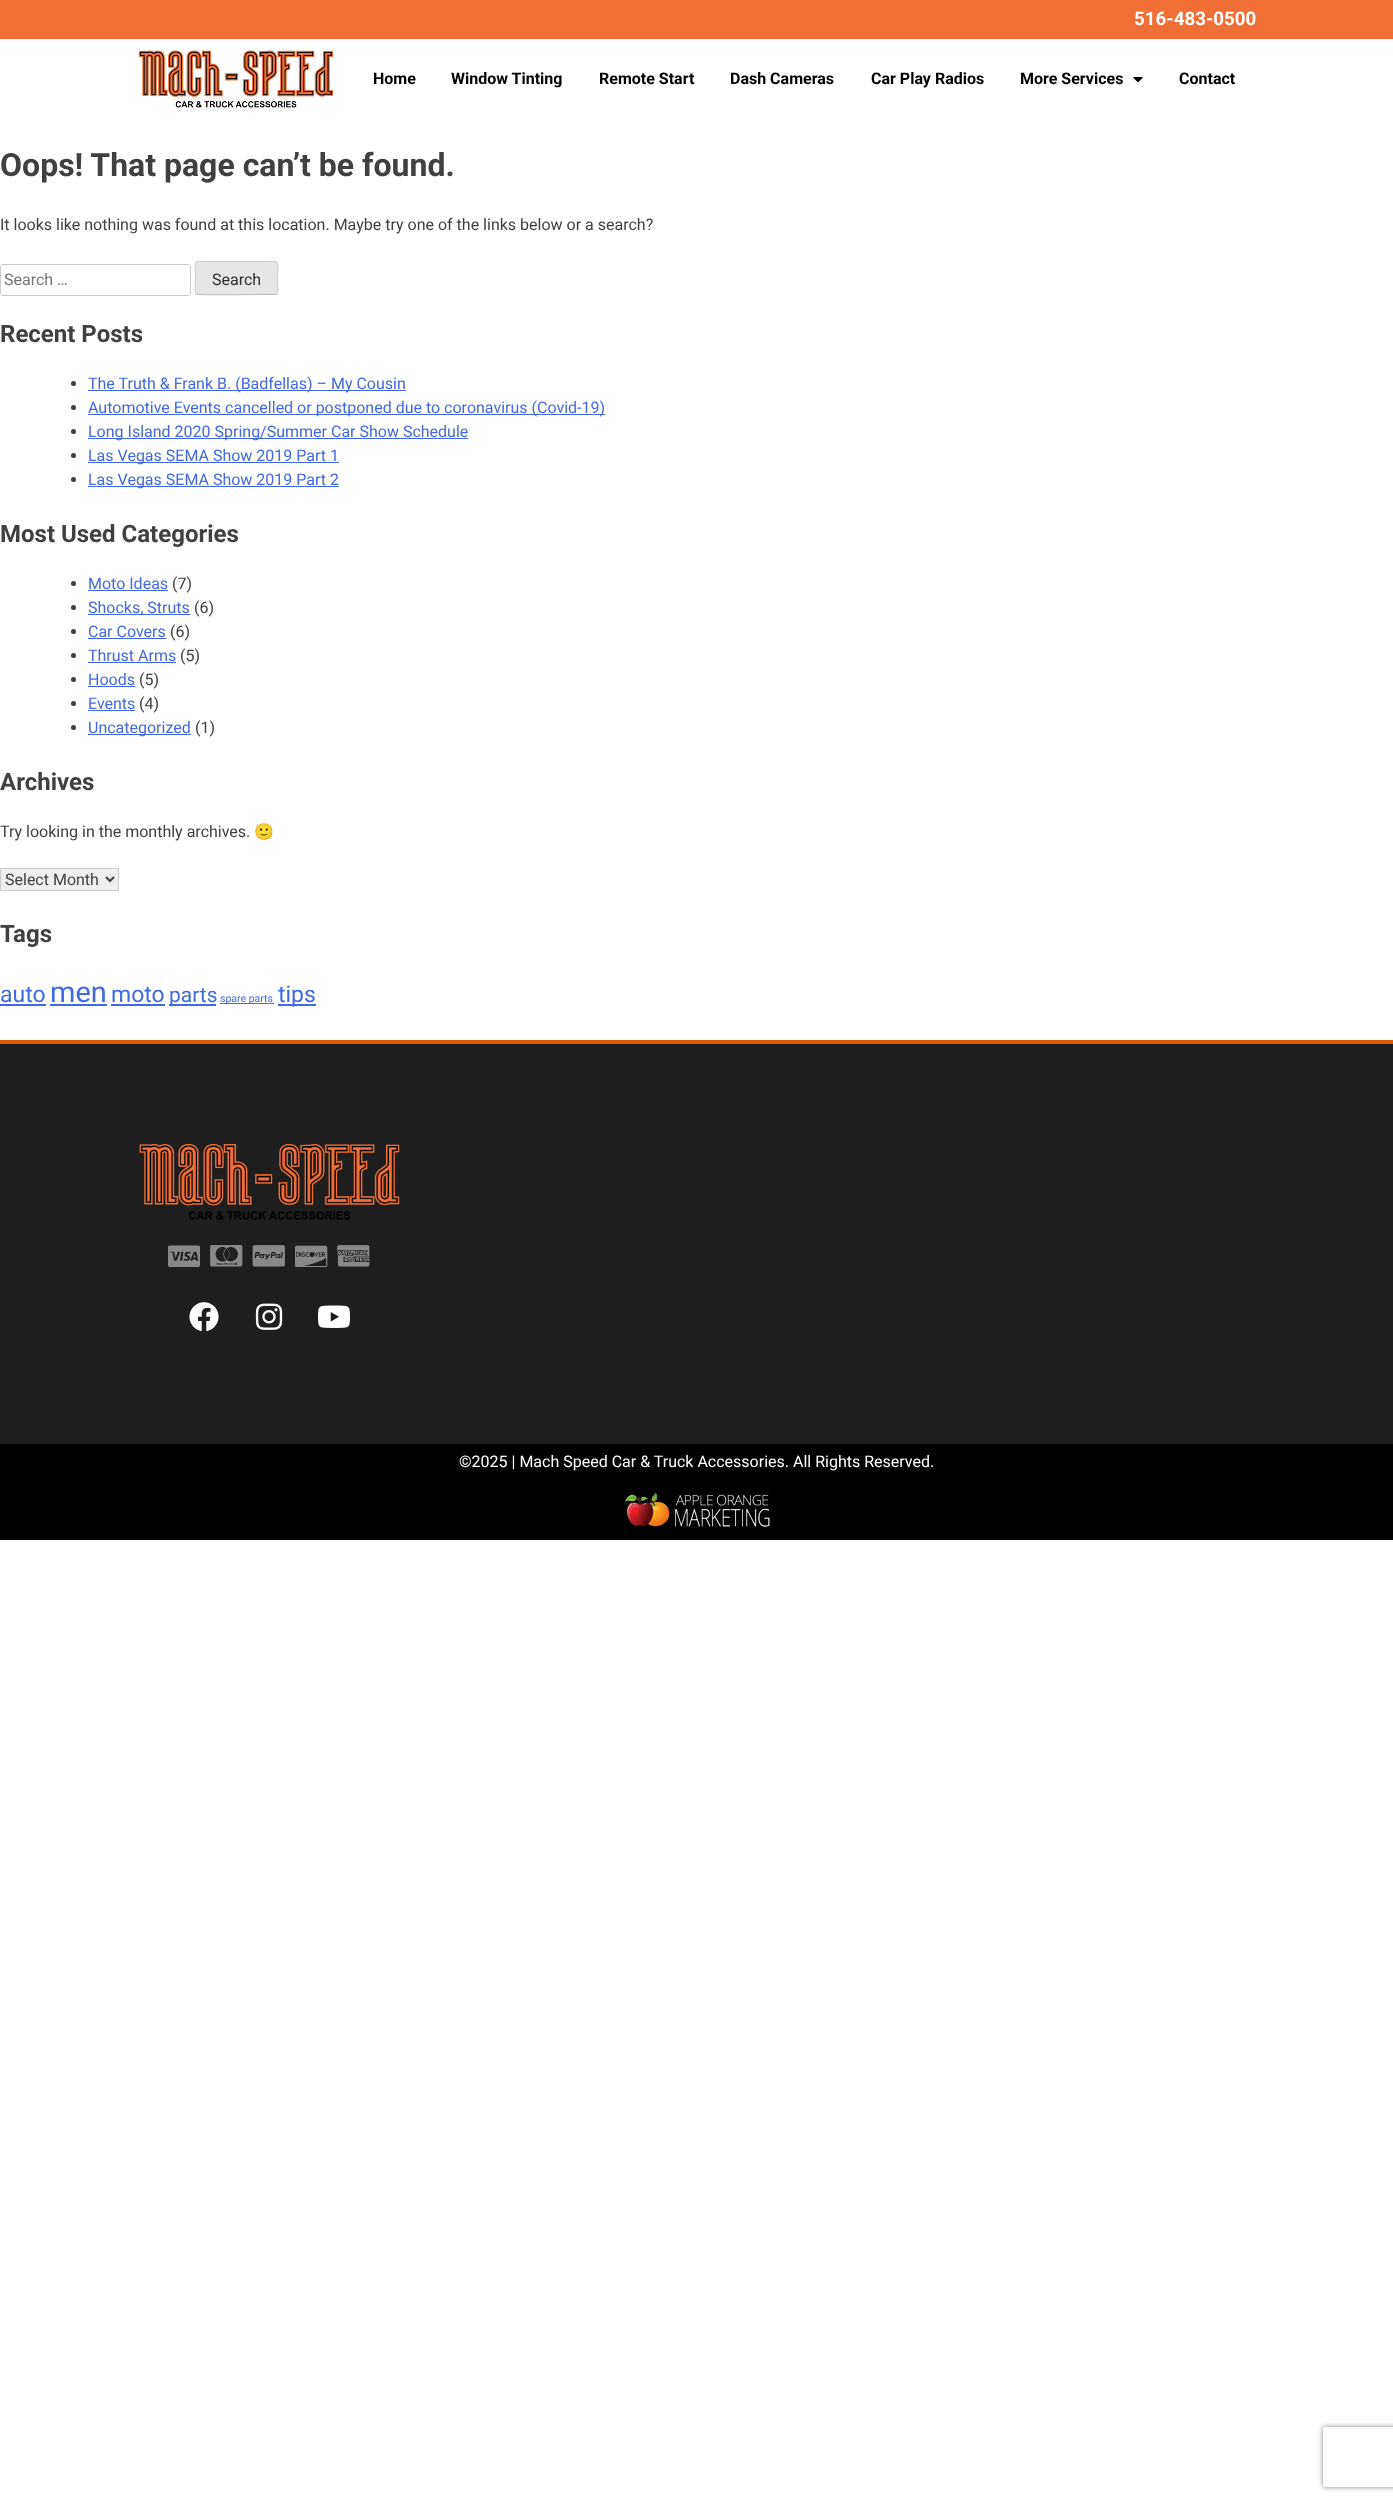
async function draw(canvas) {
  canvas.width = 1393
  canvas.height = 2501
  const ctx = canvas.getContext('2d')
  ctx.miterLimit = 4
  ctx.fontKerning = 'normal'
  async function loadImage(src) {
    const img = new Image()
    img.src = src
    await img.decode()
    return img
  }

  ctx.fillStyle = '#fff'
  ctx.fillRect(0, 0, 1393, 2501)
  ctx.fillStyle = '#f16e36'
  ctx.fillRect(0, 0, 1393, 39)
  ctx.font = 'bold 18.75px Roboto'
  ctx.fillStyle = '#fff'
  ctx.fillText('516-483-0500', 1134, 25)
  ctx.drawImage(await loadImage('image0.png'), 138, 50, 196, 58)
  ctx.font = 'bold 16px Roboto'
  ctx.fillStyle = '#000'
  ctx.fillText('Home', 373, 84)
  ctx.fillText('Window Tinting', 451, 84)
  ctx.fillText('Remote Start', 599, 84)
  ctx.fillText('Dash Cameras', 730, 84)
  ctx.fillText('Car Play Radios', 871, 84)
  ctx.fillText('More Services', 1020, 84)
  ctx.drawImage(await loadImage('image1.png'), 1133, 77, 10, 6)
  ctx.fillText('Contact', 1179, 84)
  ctx.font = 'bold 32px Roboto'
  ctx.fillStyle = '#404040'
  ctx.fillText('Oops! That page can’t be found.', 0, 176)
  ctx.font = '16px Roboto'
  ctx.fillText('It looks like nothing was found at this location. Maybe try one of the links below or a search?', 0, 230)
  ctx.beginPath()
  ctx.roundRect(0.5, 264.5, 190, 31, 2.5)
  ctx.strokeStyle = '#ccc'
  ctx.stroke()
  ctx.fillStyle = '#757575'
  ctx.fillText('Search …', 4, 285)
  ctx.fillStyle = '#e6e6e6'
  ctx.beginPath()
  ctx.roundRect(195, 261, 83, 34, 3)
  ctx.fill()
  ctx.beginPath()
  ctx.moveTo(277, 294)
  ctx.lineTo(275, 294.5)
  ctx.lineTo(262, 294.5)
  ctx.bezierCurveTo(255, 294.5, 198.5, 295.5, 196.5, 294)
  ctx.lineTo(196, 294)
  ctx.strokeStyle = '#bbb'
  ctx.stroke()
  ctx.beginPath()
  ctx.moveTo(196, 294)
  ctx.bezierCurveTo(194.5, 292, 195.5, 280.5, 195.5, 278)
  ctx.bezierCurveTo(195.5, 258.5, 191.5, 261.5, 211, 261.5)
  ctx.lineTo(262, 261.5)
  ctx.bezierCurveTo(281.5, 261.5, 277.5, 258.5, 277.5, 278)
  ctx.bezierCurveTo(277.5, 280.5, 278.5, 292, 277, 294)
  ctx.strokeStyle = '#ccc'
  ctx.stroke()
  ctx.fillStyle = '#2e2e2e'
  ctx.fillText('Search', 212, 285)
  ctx.font = 'bold 24px Roboto'
  ctx.fillStyle = '#404040'
  ctx.fillText('Recent Posts', 0, 342)
  ctx.beginPath()
  ctx.arc(73.5, 383.5, 2.5, 0, 2 * Math.PI)
  ctx.fill()
  ctx.fillStyle = '#4169e1'
  ctx.fillRect(88, 390, 318, 1)
  ctx.font = '16px Roboto'
  ctx.fillText('The Truth & Frank B. (Badfellas) – My Cousin', 88, 389)
  ctx.fillStyle = '#404040'
  ctx.beginPath()
  ctx.arc(73.5, 407.5, 2.5, 0, 2 * Math.PI)
  ctx.fill()
  ctx.fillStyle = '#4169e1'
  ctx.fillRect(88, 414, 517, 1)
  ctx.fillText('Automotive Events cancelled or postponed due to coronavirus (Covid-19)', 88, 413)
  ctx.fillStyle = '#404040'
  ctx.beginPath()
  ctx.arc(73.5, 431.5, 2.5, 0, 2 * Math.PI)
  ctx.fill()
  ctx.fillStyle = '#4169e1'
  ctx.fillRect(88, 438, 380, 1)
  ctx.fillText('Long Island 2020 Spring/Summer Car Show Schedule', 88, 437)
  ctx.fillStyle = '#404040'
  ctx.beginPath()
  ctx.arc(73.5, 455.5, 2.5, 0, 2 * Math.PI)
  ctx.fill()
  ctx.fillStyle = '#4169e1'
  ctx.fillRect(88, 462, 251, 1)
  ctx.fillText('Las Vegas SEMA Show 2019 Part 1', 88, 461)
  ctx.fillStyle = '#404040'
  ctx.beginPath()
  ctx.arc(73.5, 479.5, 2.5, 0, 2 * Math.PI)
  ctx.fill()
  ctx.fillStyle = '#4169e1'
  ctx.fillRect(88, 486, 251, 1)
  ctx.fillText('Las Vegas SEMA Show 2019 Part 2', 88, 485)
  ctx.font = 'bold 24px Roboto'
  ctx.fillStyle = '#404040'
  ctx.fillText('Most Used Categories', 0, 542)
  ctx.beginPath()
  ctx.arc(73.5, 583.5, 2.5, 0, 2 * Math.PI)
  ctx.fill()
  ctx.font = '16px Roboto'
  ctx.fillStyle = '#4169e1'
  ctx.fillText('Moto Ideas', 88, 589)
  ctx.fillRect(88, 590, 80, 1)
  ctx.fillStyle = '#404040'
  ctx.fillText('(7)', 172, 589)
  ctx.beginPath()
  ctx.arc(73.5, 607.5, 2.5, 0, 2 * Math.PI)
  ctx.fill()
  ctx.fillStyle = '#4169e1'
  ctx.fillRect(88, 614, 102, 1)
  ctx.fillText('Shocks, Struts', 88, 613)
  ctx.fillStyle = '#404040'
  ctx.fillText('(6)', 194, 613)
  ctx.beginPath()
  ctx.arc(73.5, 631.5, 2.5, 0, 2 * Math.PI)
  ctx.fill()
  ctx.fillStyle = '#4169e1'
  ctx.fillText('Car Covers', 88, 637)
  ctx.fillRect(88, 638, 78, 1)
  ctx.fillStyle = '#404040'
  ctx.fillText('(6)', 170, 637)
  ctx.beginPath()
  ctx.arc(73.5, 655.5, 2.5, 0, 2 * Math.PI)
  ctx.fill()
  ctx.fillStyle = '#4169e1'
  ctx.fillText('Thrust Arms', 88, 661)
  ctx.fillRect(88, 662, 88, 1)
  ctx.fillStyle = '#404040'
  ctx.fillText('(5)', 180, 661)
  ctx.beginPath()
  ctx.arc(73.5, 679.5, 2.5, 0, 2 * Math.PI)
  ctx.fill()
  ctx.fillStyle = '#4169e1'
  ctx.fillText('Hoods', 88, 685)
  ctx.fillRect(88, 686, 47, 1)
  ctx.fillStyle = '#404040'
  ctx.fillText('(5)', 139, 685)
  ctx.beginPath()
  ctx.arc(73.5, 703.5, 2.5, 0, 2 * Math.PI)
  ctx.fill()
  ctx.fillStyle = '#4169e1'
  ctx.fillText('Events', 88, 709)
  ctx.fillRect(88, 710, 47, 1)
  ctx.fillStyle = '#404040'
  ctx.fillText('(4)', 139, 709)
  ctx.beginPath()
  ctx.arc(73.5, 727.5, 2.5, 0, 2 * Math.PI)
  ctx.fill()
  ctx.fillStyle = '#4169e1'
  ctx.fillRect(88, 734, 103, 1)
  ctx.fillText('Uncategorized', 88, 733)
  ctx.fillStyle = '#404040'
  ctx.fillText('(1)', 195, 733)
  ctx.font = 'bold 24px Roboto'
  ctx.fillText('Archives', 0, 790)
  ctx.font = '16px Roboto'
  ctx.fillText('Try looking in the monthly archives.', 0, 837)
  ctx.font = '16px Noto Color Emoji'
  ctx.fillText('🙂', 254, 837)
  ctx.fillStyle = '#efefef'
  ctx.beginPath()
  ctx.rect(0.5, 868.5, 118, 22)
  ctx.fill()
  ctx.stroke()
  ctx.beginPath()
  ctx.moveTo(106, 877)
  ctx.lineTo(110, 881)
  ctx.lineTo(114, 877)
  ctx.strokeStyle = '#404040'
  ctx.lineWidth = 2
  ctx.stroke()
  ctx.font = '16px Roboto'
  ctx.fillStyle = '#404040'
  ctx.fillText('Select Month', 5, 885)
  ctx.font = 'bold 24px Roboto'
  ctx.fillText('Tags', 0, 942)
  ctx.font = '23px Roboto'
  ctx.fillStyle = '#4169e1'
  ctx.fillText('auto', 0, 1002)
  ctx.fillRect(0, 1004, 46, 2)
  ctx.font = '29px Roboto'
  ctx.fillText('men', 50, 1002)
  ctx.fillRect(50, 1004, 57, 2)
  ctx.font = '23px Roboto'
  ctx.fillText('moto', 111, 1002)
  ctx.fillRect(111, 1004, 54, 2)
  ctx.fillRect(169, 1004, 47, 2)
  ctx.font = '21px Roboto'
  ctx.fillText('parts', 169, 1002)
  ctx.fillRect(220, 1003, 54, 1)
  ctx.font = '10.5px Roboto'
  ctx.fillText('spare parts', 220, 1002)
  ctx.fillRect(278, 1004, 38, 2)
  ctx.font = '23px Roboto'
  ctx.fillText('tips', 278, 1002)
  ctx.fillStyle = '#1e1e1e'
  ctx.fillRect(0, 1044, 1393, 400)
  ctx.fillStyle = '#df5b05'
  ctx.fillRect(0, 1040, 1393, 4)
  ctx.drawImage(await loadImage('image2.png'), 139, 1143, 261, 77)
  ctx.drawImage(await loadImage('image3.png'), 168, 1245, 202, 22)
  ctx.drawImage(await loadImage('image4.png'), 189, 1302, 30, 30)
  ctx.drawImage(await loadImage('image5.png'), 255, 1303, 28, 27)
  ctx.drawImage(await loadImage('image6.png'), 318, 1305, 32, 23)
  ctx.fillStyle = '#000'
  ctx.fillRect(0, 1444, 1393, 96)
  ctx.font = '16px Roboto'
  ctx.fillStyle = '#fff'
  ctx.fillText('©2025 | Mach Speed Car & Truck Accessories. All Rights Reserved.', 459, 1467)
  ctx.drawImage(await loadImage('image7.png'), 624, 1492, 146, 36)
  ctx.save()
  ctx.beginPath()
  ctx.moveTo(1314, 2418)
  ctx.lineTo(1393, 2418)
  ctx.lineTo(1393, 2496)
  ctx.lineTo(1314, 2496)
  ctx.closePath()
  ctx.moveTo(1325, 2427)
  ctx.lineTo(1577, 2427)
  ctx.bezierCurveTo(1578, 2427, 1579, 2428, 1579, 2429)
  ctx.lineTo(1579, 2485)
  ctx.bezierCurveTo(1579, 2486, 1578, 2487, 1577, 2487)
  ctx.lineTo(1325, 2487)
  ctx.bezierCurveTo(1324, 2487, 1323, 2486, 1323, 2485)
  ctx.lineTo(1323, 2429)
  ctx.bezierCurveTo(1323, 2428, 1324, 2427, 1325, 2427)
  ctx.closePath()
  ctx.clip('evenodd')
  ctx.fillStyle = '#808080'
  ctx.filter = 'blur(2.5px)'
  ctx.beginPath()
  ctx.roundRect(1323, 2427, 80, 60, 2)
  ctx.fill()
  ctx.filter = 'none'
  ctx.restore()
}

draw(document.querySelector('canvas'))
